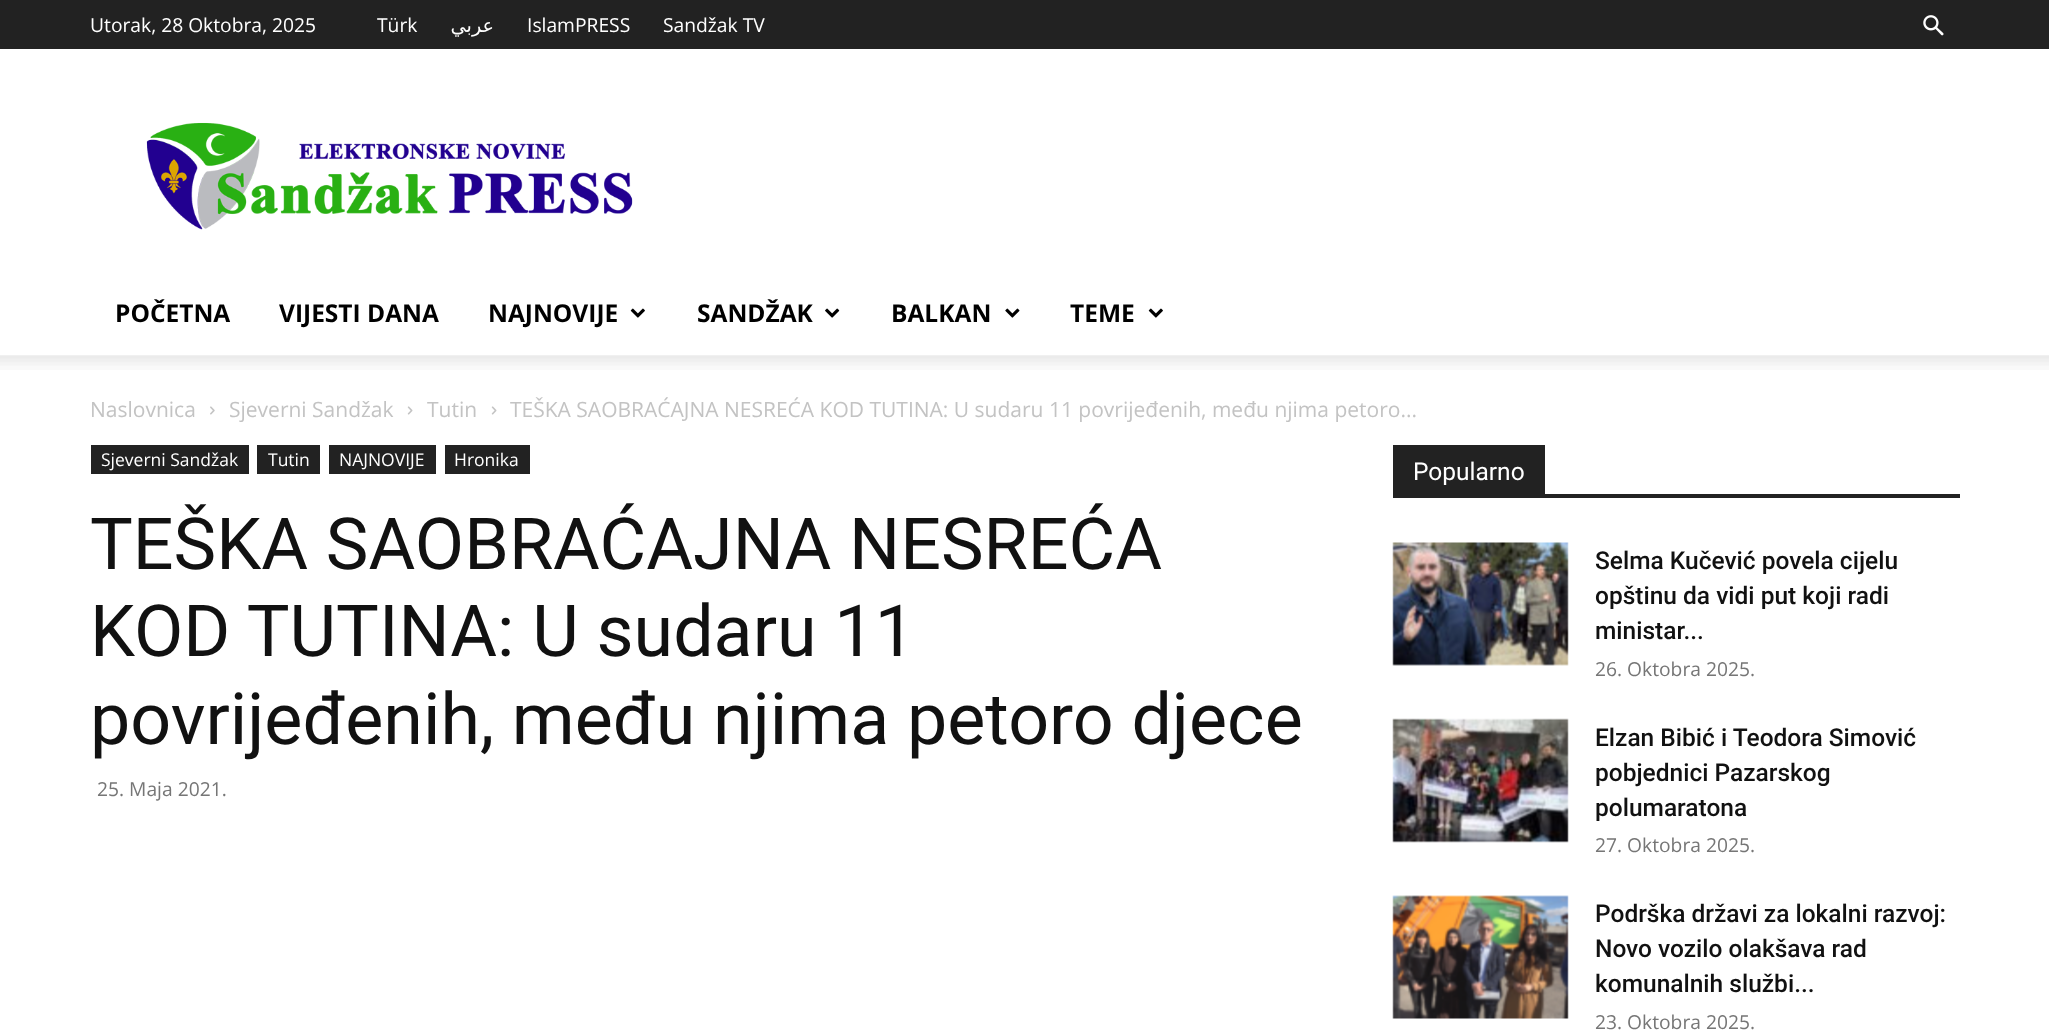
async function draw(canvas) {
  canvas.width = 2049
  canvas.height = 1030
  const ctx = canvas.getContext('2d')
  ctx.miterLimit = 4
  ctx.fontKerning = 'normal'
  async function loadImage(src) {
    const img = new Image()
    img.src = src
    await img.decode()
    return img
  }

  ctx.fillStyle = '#fff'
  ctx.fillRect(0, 0, 2049, 1030)
  ctx.fillStyle = '#222'
  ctx.fillRect(0, 0, 2049, 49)
  ctx.font = '19.25px Open Sans'
  ctx.fillStyle = '#fff'
  ctx.fillText('Utorak, 28 Oktobra, 2025', 90, 32)
  ctx.fillText('Türk', 377, 32)
  ctx.direction = 'rtl'
  ctx.font = '19.25px DejaVu Sans'
  ctx.fillText('عربي', 494, 32)
  ctx.direction = 'ltr'
  ctx.font = '19.25px Open Sans'
  ctx.fillText('IslamPRESS', 527, 32)
  ctx.fillText('Sandžak TV', 663, 32)
  ctx.drawImage(await loadImage('image0.png'), 1923, 15, 21, 21)
  ctx.drawImage(await loadImage('image1.png'), 146, 122, 487, 108)
  ctx.font = 'bold 24.5px Open Sans'
  ctx.fillStyle = '#000'
  ctx.fillText('POČETNA', 115, 322)
  ctx.fillText('VIJESTI DANA', 279, 322)
  ctx.fillText('NAJNOVIJE', 488, 322)
  ctx.drawImage(await loadImage('image2.png'), 630, 308, 15, 10)
  ctx.fillText('SANDŽAK', 697, 322)
  ctx.drawImage(await loadImage('image3.png'), 825, 308, 15, 10)
  ctx.fillText('BALKAN', 891, 322)
  ctx.drawImage(await loadImage('image4.png'), 1005, 308, 15, 10)
  ctx.fillText('TEME', 1070, 322)
  ctx.drawImage(await loadImage('image2.png'), 1148, 308, 15, 10)
  ctx.drawImage(await loadImage('image5.png'), 0, 355, 2049, 15)
  ctx.font = '21px Open Sans'
  ctx.fillStyle = '#c3c3c3'
  ctx.fillText('Naslovnica', 90, 417)
  ctx.drawImage(await loadImage('image6.png'), 210, 406, 5, 9)
  ctx.fillText('Sjeverni Sandžak', 229, 417)
  ctx.drawImage(await loadImage('image7.png'), 407, 406, 6, 9)
  ctx.fillText('Tutin', 427, 417)
  ctx.drawImage(await loadImage('image7.png'), 491, 406, 6, 9)
  ctx.fillText('TEŠKA SAOBRAĆAJNA NESREĆA KOD TUTINA: U sudaru 11 povrijeđenih, među njima petoro...', 510, 417)
  ctx.fillStyle = '#222'
  ctx.fillRect(91, 445, 158, 29)
  ctx.font = '17.5px Open Sans'
  ctx.fillStyle = '#fff'
  ctx.fillText('Sjeverni Sandžak', 101, 466)
  ctx.fillStyle = '#222'
  ctx.fillRect(257, 445, 63, 29)
  ctx.fillStyle = '#fff'
  ctx.fillText('Tutin', 268, 466)
  ctx.fillStyle = '#222'
  ctx.fillRect(329, 445, 107, 29)
  ctx.fillStyle = '#fff'
  ctx.fillText('NAJNOVIJE', 339, 466)
  ctx.fillStyle = '#222'
  ctx.fillRect(445, 445, 85, 29)
  ctx.fillStyle = '#fff'
  ctx.fillText('Hronika', 454, 466)
  ctx.font = '71.75px Roboto'
  ctx.fillStyle = '#111'
  ctx.fillText('TEŠKA SAOBRAĆAJNA NESREĆA', 90, 569)
  ctx.fillText('KOD TUTINA: U sudaru 11', 90, 656)
  ctx.fillText('povrijeđenih, među njima petoro djece', 90, 744)
  ctx.font = '19.25px Open Sans'
  ctx.fillStyle = '#767676'
  ctx.fillText('25. Maja 2021.', 97, 796)
  ctx.fillStyle = '#222'
  ctx.fillRect(1393, 494, 567, 4)
  ctx.fillRect(1393, 445, 152, 49)
  ctx.font = '24.5px Roboto'
  ctx.fillStyle = '#fff'
  ctx.fillText('Popularno', 1413, 480)
  ctx.drawImage(await loadImage('image8.png'), 1392, 542, 177, 124)
  ctx.font = '500 24.5px Roboto'
  ctx.fillStyle = '#111'
  ctx.fillText('Selma Kučević povela cijelu', 1595, 569)
  ctx.fillText('opštinu da vidi put koji radi', 1595, 604)
  ctx.fillText('ministar...', 1595, 639)
  ctx.font = '19.25px Open Sans'
  ctx.fillStyle = '#767676'
  ctx.fillText('26. Oktobra 2025.', 1595, 676)
  ctx.drawImage(await loadImage('image9.png'), 1392, 718, 177, 125)
  ctx.font = '500 24.5px Roboto'
  ctx.fillStyle = '#111'
  ctx.fillText('Elzan Bibić i Teodora Simović', 1595, 746)
  ctx.fillText('pobjednici Pazarskog', 1595, 781)
  ctx.fillText('polumaratona', 1595, 816)
  ctx.font = '19.25px Open Sans'
  ctx.fillStyle = '#767676'
  ctx.fillText('27. Oktobra 2025.', 1595, 852)
  ctx.drawImage(await loadImage('image10.png'), 1392, 895, 177, 124)
  ctx.font = '500 24.5px Roboto'
  ctx.fillStyle = '#111'
  ctx.fillText('Podrška državi za lokalni razvoj:', 1595, 922)
  ctx.fillText('Novo vozilo olakšava rad', 1595, 957)
  ctx.fillText('komunalnih službi...', 1595, 992)
  ctx.font = '19.25px Open Sans'
  ctx.fillStyle = '#767676'
  ctx.fillText('23. Oktobra 2025.', 1595, 1029)
}

draw(document.querySelector('canvas'))
